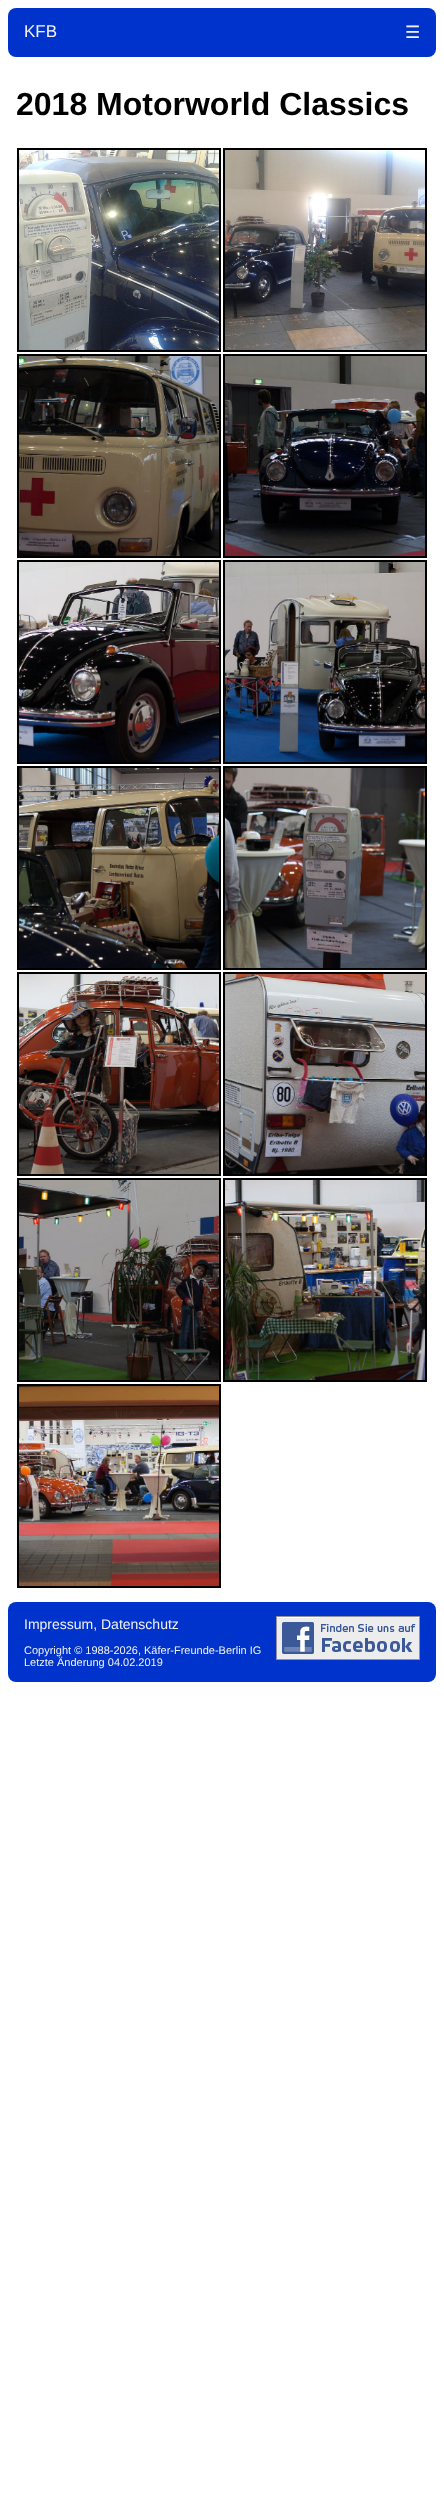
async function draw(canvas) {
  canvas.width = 444
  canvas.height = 2496
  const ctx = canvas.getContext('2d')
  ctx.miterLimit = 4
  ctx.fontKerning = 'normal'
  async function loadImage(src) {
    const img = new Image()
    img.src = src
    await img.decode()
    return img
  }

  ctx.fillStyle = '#fff'
  ctx.fillRect(0, 0, 444, 2496)
  ctx.fillStyle = '#03c'
  ctx.beginPath()
  ctx.roundRect(8, 8, 428, 49, 8)
  ctx.fill()
  ctx.font = '17px Liberation Sans'
  ctx.fillStyle = '#f2f2f2'
  ctx.fillText('KFB', 24, 37)
  ctx.font = '17px DejaVu Sans'
  ctx.fillText('☰', 405, 38)
  ctx.font = 'bold 32px Liberation Sans'
  ctx.fillStyle = '#000'
  ctx.fillText('2018 Motorworld Classics', 16, 115)
  ctx.strokeStyle = '#000'
  ctx.lineWidth = 2
  ctx.strokeRect(18, 149, 202, 202)
  ctx.drawImage(await loadImage('image0.png'), 19, 150, 200, 200)
  ctx.strokeRect(224, 149, 202, 202)
  ctx.drawImage(await loadImage('image1.png'), 225, 150, 200, 200)
  ctx.strokeRect(18, 355, 202, 202)
  ctx.drawImage(await loadImage('image2.png'), 19, 356, 200, 200)
  ctx.strokeRect(224, 355, 202, 202)
  ctx.drawImage(await loadImage('image3.png'), 225, 356, 200, 200)
  ctx.strokeRect(18, 561, 202, 202)
  ctx.drawImage(await loadImage('image4.png'), 19, 562, 200, 200)
  ctx.strokeRect(224, 561, 202, 202)
  ctx.drawImage(await loadImage('image5.png'), 225, 562, 200, 200)
  ctx.strokeRect(18, 767, 202, 202)
  ctx.drawImage(await loadImage('image6.png'), 19, 768, 200, 200)
  ctx.strokeRect(224, 767, 202, 202)
  ctx.drawImage(await loadImage('image7.png'), 225, 768, 200, 200)
  ctx.strokeRect(18, 973, 202, 202)
  ctx.drawImage(await loadImage('image8.png'), 19, 974, 200, 200)
  ctx.strokeRect(224, 973, 202, 202)
  ctx.drawImage(await loadImage('image9.png'), 225, 974, 200, 200)
  ctx.strokeRect(18, 1179, 202, 202)
  ctx.drawImage(await loadImage('image10.png'), 19, 1180, 200, 200)
  ctx.strokeRect(224, 1179, 202, 202)
  ctx.drawImage(await loadImage('image11.png'), 225, 1180, 200, 200)
  ctx.strokeRect(18, 1385, 202, 202)
  ctx.drawImage(await loadImage('image12.png'), 19, 1386, 200, 200)
  ctx.fillStyle = '#03c'
  ctx.beginPath()
  ctx.roundRect(8, 1602, 428, 80, 8)
  ctx.fill()
  ctx.font = '14px Liberation Sans'
  ctx.fillStyle = '#f2f2f2'
  ctx.fillText('Impressum, Datenschutz', 24, 1629)
  ctx.font = '11px Liberation Sans'
  ctx.fillText('Copyright © 1988-2026, Käfer-Freunde-Berlin IG', 24, 1654)
  ctx.fillText('Letzte Änderung 04.02.2019', 24, 1666)
  ctx.drawImage(await loadImage('image13.png'), 276, 1616, 144, 44)
}

draw(document.querySelector('canvas'))
